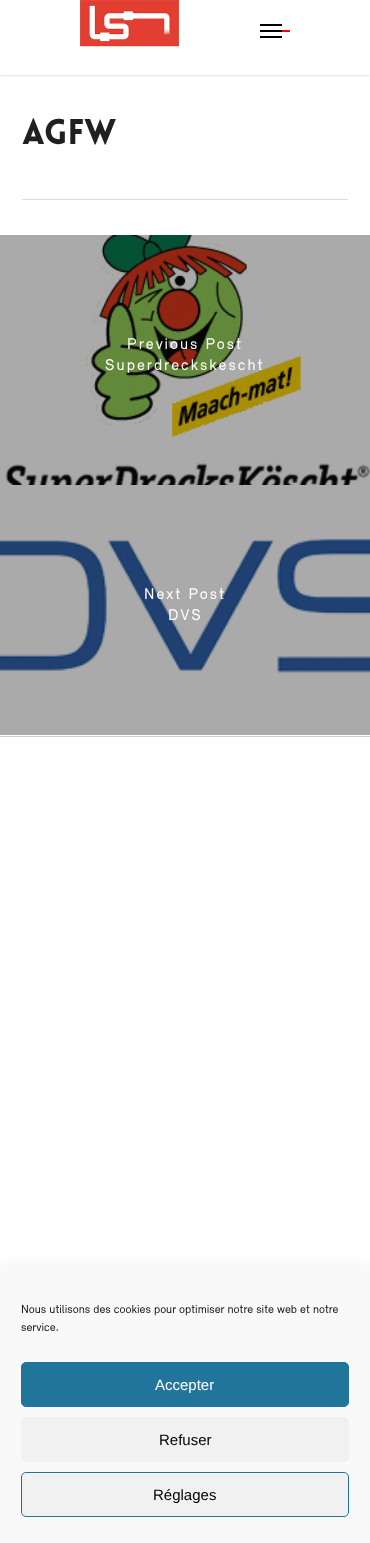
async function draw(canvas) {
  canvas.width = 370
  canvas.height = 1543
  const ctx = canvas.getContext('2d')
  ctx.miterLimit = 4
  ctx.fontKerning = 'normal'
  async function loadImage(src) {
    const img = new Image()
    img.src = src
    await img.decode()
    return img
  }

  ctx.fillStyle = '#fff'
  ctx.fillRect(0, 0, 370, 1543)
  ctx.save()
  ctx.beginPath()
  ctx.rect(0, 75, 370, 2)
  ctx.clip()
  ctx.fillStyle = '#00000038'
  ctx.filter = 'blur(1.5px)'
  ctx.beginPath()
  ctx.rect(0, 0, 370, 75)
  ctx.fill()
  ctx.filter = 'none'
  ctx.restore()
  ctx.drawImage(await loadImage('image0.png'), 80, 0, 99, 47)
  ctx.fillStyle = '#f00'
  ctx.fillRect(282, 30, 8, 2)
  ctx.fillStyle = '#000'
  ctx.fillRect(260, 24, 22, 2)
  ctx.fillRect(260, 36, 22, 2)
  ctx.fillRect(260, 30, 22, 2)
  ctx.fillStyle = '#ddd'
  ctx.fillRect(22, 199, 326, 1)
  ctx.font = '900 35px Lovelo'
  ctx.fillStyle = '#1e2022'
  ctx.fillText('AGFW', 22, 144)
  ctx.drawImage(await loadImage('image1.png'), 0, 235, 370, 250)
  ctx.letterSpacing = '2px'
  ctx.font = '16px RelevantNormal'
  ctx.fillStyle = '#fff'
  ctx.fillText('Previous Post', 127, 349)
  ctx.fillText('Superdreckskescht', 105, 370)
  ctx.drawImage(await loadImage('image2.png'), 0, 485, 370, 250)
  ctx.fillText('Next Post', 144, 599)
  ctx.fillText('DVS', 168, 620)
  ctx.fillStyle = '#ccc'
  ctx.fillRect(0, 736, 370, 1)
  ctx.fillStyle = '#00000030'
  ctx.filter = 'blur(10px)'
  ctx.beginPath()
  ctx.rect(0, 1275, 370, 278)
  ctx.fill()
  ctx.filter = 'none'
  ctx.fillStyle = '#f9f9f9'
  ctx.fillRect(0, 1266, 370, 277)
  ctx.letterSpacing = '0px'
  ctx.font = '12px RelevantNormal'
  ctx.fillStyle = '#0f1616'
  ctx.fillText('Nous utilisons des cookies pour optimiser notre site web et notre', 21, 1313)
  ctx.fillText('service.', 21, 1331)
  ctx.fillStyle = '#21759b'
  ctx.beginPath()
  ctx.roundRect(21.5, 1362.5, 327, 44, 4.5)
  ctx.fill()
  ctx.strokeStyle = '#21759b'
  ctx.stroke()
  ctx.font = '15px Liberation Sans'
  ctx.fillStyle = '#fff'
  ctx.fillText('Accepter', 155, 1390)
  ctx.fillStyle = '#f1f1f1'
  ctx.beginPath()
  ctx.roundRect(21, 1417, 328, 45, 5)
  ctx.fill()
  ctx.fillStyle = '#000'
  ctx.fillText('Refuser', 159, 1445)
  ctx.fillStyle = '#f1f1f1'
  ctx.beginPath()
  ctx.roundRect(21.5, 1472.5, 327, 44, 4.5)
  ctx.fill()
  ctx.stroke()
  ctx.fillStyle = '#000'
  ctx.fillText('Réglages', 153, 1500)
}

draw(document.querySelector('canvas'))
